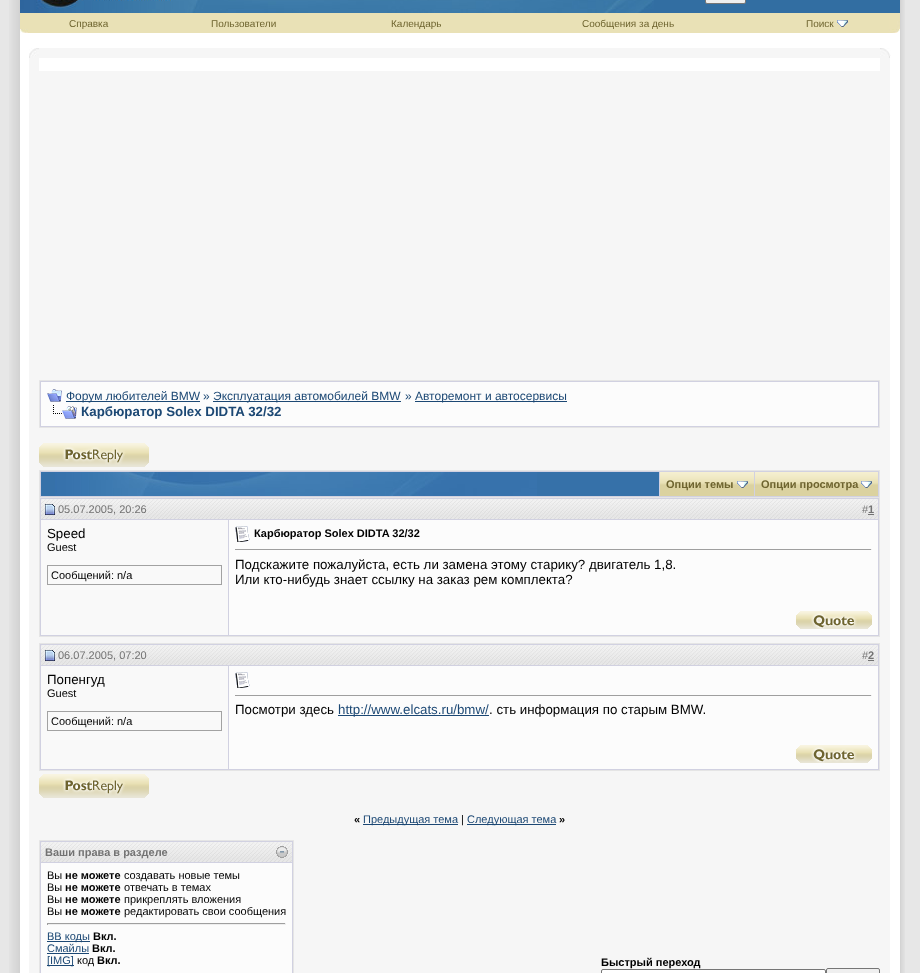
async function draw(canvas) {
  canvas.width = 920
  canvas.height = 973
  const ctx = canvas.getContext('2d')
  ctx.miterLimit = 4
  ctx.fontKerning = 'normal'
  async function loadImage(src) {
    const img = new Image()
    img.src = src
    await img.decode()
    return img
  }

  ctx.fillStyle = '#e7e7e7'
  ctx.fillRect(0, 0, 920, 973)
  ctx.drawImage(await loadImage('image0.png'), 9, 0, 11, 973)
  ctx.fillStyle = '#fff'
  ctx.fillRect(20, 33, 880, 940)
  ctx.drawImage(await loadImage('image1.png'), 654, 0, 246, 13)
  ctx.drawImage(await loadImage('image2.png'), 20, 0, 208, 13)
  ctx.drawImage(await loadImage('image3.png'), 228, 0, 426, 13)
  ctx.fillStyle = '#efefef'
  ctx.beginPath()
  ctx.roundRect(705.5, -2.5, 40, 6, 1.5)
  ctx.fill()
  ctx.strokeStyle = '#767676'
  ctx.stroke()
  ctx.drawImage(await loadImage('image4.png'), 20, 13, 10, 20)
  ctx.fillStyle = '#e9e1b6'
  ctx.fillRect(30, 13, 859, 20)
  ctx.font = '10px Liberation Sans'
  ctx.fillStyle = '#6e642f'
  ctx.fillText('Справка', 69, 27)
  ctx.fillText('Пользователи', 211, 27)
  ctx.fillText('Календарь', 391, 27)
  ctx.fillText('Сообщения за день', 582, 27)
  ctx.fillText('Поиск', 806, 27)
  ctx.drawImage(await loadImage('image5.png'), 837, 20, 11, 7)
  ctx.drawImage(await loadImage('image6.png'), 889, 13, 11, 20)
  ctx.drawImage(await loadImage('image7.png'), 29, 48, 10, 10)
  ctx.fillStyle = '#f6f6f6'
  ctx.fillRect(39, 48, 841, 10)
  ctx.drawImage(await loadImage('image8.png'), 880, 48, 11, 10)
  ctx.fillRect(29, 58, 10, 915)
  ctx.fillRect(39, 71, 841, 399)
  ctx.fillStyle = '#d1d1e1'
  ctx.beginPath()
  ctx.rect(39.5, 380.5, 840, 47)
  ctx.fill()
  ctx.strokeStyle = '#e5e5e5'
  ctx.stroke()
  ctx.fillStyle = '#fcfcfc'
  ctx.fillRect(41, 382, 837, 44)
  ctx.drawImage(await loadImage('image9.png'), 47, 389, 15, 13)
  ctx.fillStyle = '#1c4874'
  ctx.fillRect(66, 401, 134, 1)
  ctx.font = '12px Liberation Sans'
  ctx.fillText('Форум любителей BMW', 66, 400)
  ctx.fillText('»', 203, 400)
  ctx.fillRect(213, 401, 188, 1)
  ctx.fillText('Эксплуатация автомобилей BMW', 213, 400)
  ctx.fillText('»', 405, 400)
  ctx.fillRect(415, 401, 152, 1)
  ctx.fillText('Авторемонт и автосервисы', 415, 400)
  ctx.drawImage(await loadImage('image10.png'), 53, 405, 24, 14)
  ctx.font = 'bold 13.3px Liberation Sans'
  ctx.fillText('Карбюратор Solex DIDTA 32/32', 81, 416)
  ctx.drawImage(await loadImage('image11.png'), 39, 443, 110, 24)
  ctx.fillStyle = '#d1d1e1'
  ctx.fillRect(40, 471, 839, 26)
  ctx.fillStyle = '#e5e5e5'
  ctx.fillRect(39, 470, 841, 1)
  ctx.fillRect(879, 470, 1, 27)
  ctx.fillRect(39, 470, 1, 27)
  ctx.fillStyle = '#3671a9'
  ctx.fillRect(41, 472, 618, 24)
  ctx.drawImage(await loadImage('image12.png'), 55, 472, 482, 24)
  ctx.fillStyle = '#dbd2a0'
  ctx.fillRect(660, 485, 94, 11)
  ctx.drawImage(await loadImage('image13.png'), 660, 472, 94, 13)
  ctx.font = 'bold 11px Liberation Sans'
  ctx.fillStyle = '#6e642f'
  ctx.fillText('Опции темы', 666, 488)
  ctx.drawImage(await loadImage('image14.png'), 737, 481, 11, 7)
  ctx.fillStyle = '#dbd2a0'
  ctx.fillRect(755, 485, 123, 11)
  ctx.drawImage(await loadImage('image15.png'), 755, 472, 123, 13)
  ctx.fillStyle = '#6e642f'
  ctx.fillText('Опции просмотра', 761, 488)
  ctx.drawImage(await loadImage('image14.png'), 861, 481, 11, 7)
  ctx.fillStyle = '#f6f6f6'
  ctx.fillRect(39, 637, 841, 6)
  ctx.strokeRect(39.5, 497.5, 840, 139)
  ctx.drawImage(await loadImage('image16.png'), 41, 499, 188, 20)
  ctx.fillStyle = '#d1d1e1'
  ctx.fillRect(40, 498, 839, 1)
  ctx.fillRect(40, 519, 189, 1)
  ctx.fillRect(40, 498, 1, 107)
  ctx.drawImage(await loadImage('image17.png'), 45, 504, 10, 11)
  ctx.font = '11px Liberation Sans'
  ctx.fillStyle = '#737373'
  ctx.fillText('05.07.2005, 20:26', 58, 513)
  ctx.drawImage(await loadImage('image18.png'), 229, 499, 649, 20)
  ctx.fillStyle = '#d1d1e1'
  ctx.fillRect(878, 498, 1, 138)
  ctx.fillRect(229, 519, 650, 1)
  ctx.fillStyle = '#737373'
  ctx.fillText('#', 862, 513)
  ctx.font = 'bold 11px Liberation Sans'
  ctx.fillText('1', 868, 513)
  ctx.fillRect(868, 514, 6, 1)
  ctx.fillStyle = '#f9f9f9'
  ctx.fillRect(41, 520, 187, 115)
  ctx.fillStyle = '#d1d1e1'
  ctx.fillRect(228, 520, 1, 116)
  ctx.font = '13.3px Liberation Sans'
  ctx.fillStyle = '#000'
  ctx.fillText('Speed', 47, 538)
  ctx.font = '11px Liberation Sans'
  ctx.fillText('Guest', 47, 551)
  ctx.strokeStyle = '#a2a2a2'
  ctx.strokeRect(47.5, 565.5, 174, 19)
  ctx.fillText('Сообщений: n/a', 51, 579)
  ctx.fillStyle = '#fcfcfc'
  ctx.fillRect(229, 520, 649, 115)
  ctx.drawImage(await loadImage('image19.png'), 235, 526, 15, 16)
  ctx.font = 'bold 11px Liberation Sans'
  ctx.fillStyle = '#000'
  ctx.fillText('Карбюратор Solex DIDTA 32/32', 254, 537)
  ctx.fillStyle = '#9f9f9f'
  ctx.fillRect(235, 549, 637, 1)
  ctx.fillStyle = '#eee'
  ctx.fillRect(871, 549, 1, 1)
  ctx.font = '13.3px Liberation Sans'
  ctx.fillStyle = '#000'
  ctx.fillText('Подскажите пожалуйста, есть ли замена этому старику? двигатель 1,8.', 235, 569)
  ctx.fillText('Или кто-нибудь знает ссылку на заказ рем комплекта?', 235, 584)
  ctx.fillStyle = '#d1d1e1'
  ctx.fillRect(40, 635, 839, 1)
  ctx.fillRect(40, 605, 1, 31)
  ctx.drawImage(await loadImage('image20.png'), 796, 611, 76, 18)
  ctx.fillStyle = '#f6f6f6'
  ctx.fillRect(39, 771, 841, 202)
  ctx.strokeStyle = '#e5e5e5'
  ctx.strokeRect(39.5, 643.5, 840, 127)
  ctx.drawImage(await loadImage('image16.png'), 41, 645, 188, 20)
  ctx.fillStyle = '#d1d1e1'
  ctx.fillRect(40, 644, 839, 1)
  ctx.fillRect(40, 665, 189, 1)
  ctx.fillRect(40, 644, 1, 95)
  ctx.drawImage(await loadImage('image17.png'), 45, 650, 10, 11)
  ctx.font = '11px Liberation Sans'
  ctx.fillStyle = '#737373'
  ctx.fillText('06.07.2005, 07:20', 58, 659)
  ctx.drawImage(await loadImage('image18.png'), 229, 645, 649, 20)
  ctx.fillStyle = '#d1d1e1'
  ctx.fillRect(878, 644, 1, 126)
  ctx.fillRect(229, 665, 650, 1)
  ctx.fillStyle = '#737373'
  ctx.fillText('#', 862, 659)
  ctx.font = 'bold 11px Liberation Sans'
  ctx.fillText('2', 868, 659)
  ctx.fillRect(868, 660, 6, 1)
  ctx.fillStyle = '#f9f9f9'
  ctx.fillRect(41, 666, 187, 103)
  ctx.fillStyle = '#d1d1e1'
  ctx.fillRect(228, 666, 1, 104)
  ctx.font = '13.3px Liberation Sans'
  ctx.fillStyle = '#000'
  ctx.fillText('Попенгуд', 47, 684)
  ctx.font = '11px Liberation Sans'
  ctx.fillText('Guest', 47, 697)
  ctx.strokeStyle = '#a2a2a2'
  ctx.strokeRect(47.5, 711.5, 174, 19)
  ctx.fillText('Сообщений: n/a', 51, 725)
  ctx.fillStyle = '#fcfcfc'
  ctx.fillRect(229, 666, 649, 103)
  ctx.drawImage(await loadImage('image19.png'), 235, 672, 15, 16)
  ctx.fillStyle = '#9f9f9f'
  ctx.fillRect(235, 695, 637, 1)
  ctx.fillStyle = '#eee'
  ctx.fillRect(871, 695, 1, 1)
  ctx.font = '13.3px Liberation Sans'
  ctx.fillStyle = '#000'
  ctx.fillText('Посмотри здесь', 235, 714)
  ctx.fillStyle = '#1c4874'
  ctx.fillRect(338, 715, 151, 1)
  ctx.fillText('http://www.elcats.ru/bmw/', 338, 714)
  ctx.fillStyle = '#000'
  ctx.fillText('. сть информация по старым BMW.', 489, 714)
  ctx.fillStyle = '#d1d1e1'
  ctx.fillRect(40, 769, 839, 1)
  ctx.fillRect(40, 739, 1, 31)
  ctx.drawImage(await loadImage('image20.png'), 796, 745, 76, 18)
  ctx.drawImage(await loadImage('image11.png'), 39, 774, 110, 24)
  ctx.font = 'bold 11px Liberation Sans'
  ctx.fillStyle = '#000'
  ctx.fillText('«', 354, 823)
  ctx.fillStyle = '#1c4874'
  ctx.fillRect(363, 824, 95, 1)
  ctx.font = '11px Liberation Sans'
  ctx.fillText('Предыдущая тема', 363, 823)
  ctx.fillStyle = '#000'
  ctx.fillText('|', 461, 823)
  ctx.fillStyle = '#1c4874'
  ctx.fillRect(467, 824, 89, 1)
  ctx.fillText('Следующая тема', 467, 823)
  ctx.font = 'bold 11px Liberation Sans'
  ctx.fillStyle = '#000'
  ctx.fillText('»', 559, 823)
  ctx.fillStyle = '#d1d1e1'
  ctx.beginPath()
  ctx.rect(39.5, 840.5, 254, 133)
  ctx.fill()
  ctx.strokeStyle = '#e5e5e5'
  ctx.stroke()
  ctx.drawImage(await loadImage('image21.png'), 41, 842, 251, 20)
  ctx.fillStyle = '#737373'
  ctx.fillText('Ваши права в разделе', 45, 856)
  ctx.drawImage(await loadImage('image22.png'), 276, 846, 12, 12)
  ctx.fillStyle = '#fcfcfc'
  ctx.fillRect(41, 863, 251, 110)
  ctx.font = '11px Liberation Sans'
  ctx.fillStyle = '#000'
  ctx.fillText('Вы', 47, 879)
  ctx.font = 'bold 11px Liberation Sans'
  ctx.fillText('не можете', 65, 879)
  ctx.font = '11px Liberation Sans'
  ctx.fillText('создавать новые темы', 124, 879)
  ctx.fillText('Вы', 47, 891)
  ctx.font = 'bold 11px Liberation Sans'
  ctx.fillText('не можете', 65, 891)
  ctx.font = '11px Liberation Sans'
  ctx.fillText('отвечать в темах', 124, 891)
  ctx.fillText('Вы', 47, 903)
  ctx.font = 'bold 11px Liberation Sans'
  ctx.fillText('не можете', 65, 903)
  ctx.font = '11px Liberation Sans'
  ctx.fillText('прикреплять вложения', 124, 903)
  ctx.fillText('Вы', 47, 915)
  ctx.font = 'bold 11px Liberation Sans'
  ctx.fillText('не можете', 65, 915)
  ctx.font = '11px Liberation Sans'
  ctx.fillText('редактировать свои сообщения', 124, 915)
  ctx.fillStyle = '#9f9f9f'
  ctx.fillRect(47, 923, 239, 1)
  ctx.fillStyle = '#eee'
  ctx.fillRect(285, 923, 1, 2)
  ctx.fillRect(47, 924, 239, 1)
  ctx.fillStyle = '#9f9f9f'
  ctx.fillRect(47, 923, 1, 2)
  ctx.fillStyle = '#1c4874'
  ctx.fillRect(47, 941, 43, 1)
  ctx.fillText('BB коды', 47, 940)
  ctx.font = 'bold 11px Liberation Sans'
  ctx.fillStyle = '#000'
  ctx.fillText('Вкл.', 93, 940)
  ctx.font = '11px Liberation Sans'
  ctx.fillStyle = '#1c4874'
  ctx.fillText('Смайлы', 47, 952)
  ctx.fillRect(47, 953, 42, 1)
  ctx.font = 'bold 11px Liberation Sans'
  ctx.fillStyle = '#000'
  ctx.fillText('Вкл.', 92, 952)
  ctx.fillStyle = '#1c4874'
  ctx.fillRect(47, 965, 27, 1)
  ctx.font = '11px Liberation Sans'
  ctx.fillText('[IMG]', 47, 964)
  ctx.fillStyle = '#000'
  ctx.fillText('код', 77, 964)
  ctx.font = 'bold 11px Liberation Sans'
  ctx.fillText('Вкл.', 97, 964)
  ctx.fillText('Быстрый переход', 601, 966)
  ctx.fillStyle = '#fff'
  ctx.beginPath()
  ctx.roundRect(601.5, 969.5, 224, 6, 1.5)
  ctx.fill()
  ctx.strokeStyle = '#767676'
  ctx.stroke()
  ctx.fillStyle = '#efefef'
  ctx.beginPath()
  ctx.roundRect(826.5, 968.5, 53, 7, 1.5)
  ctx.fill()
  ctx.stroke()
  ctx.fillStyle = '#f6f6f6'
  ctx.fillRect(880, 58, 10, 915)
  ctx.drawImage(await loadImage('image23.png'), 900, 0, 5, 973)
}

draw(document.querySelector('canvas'))
